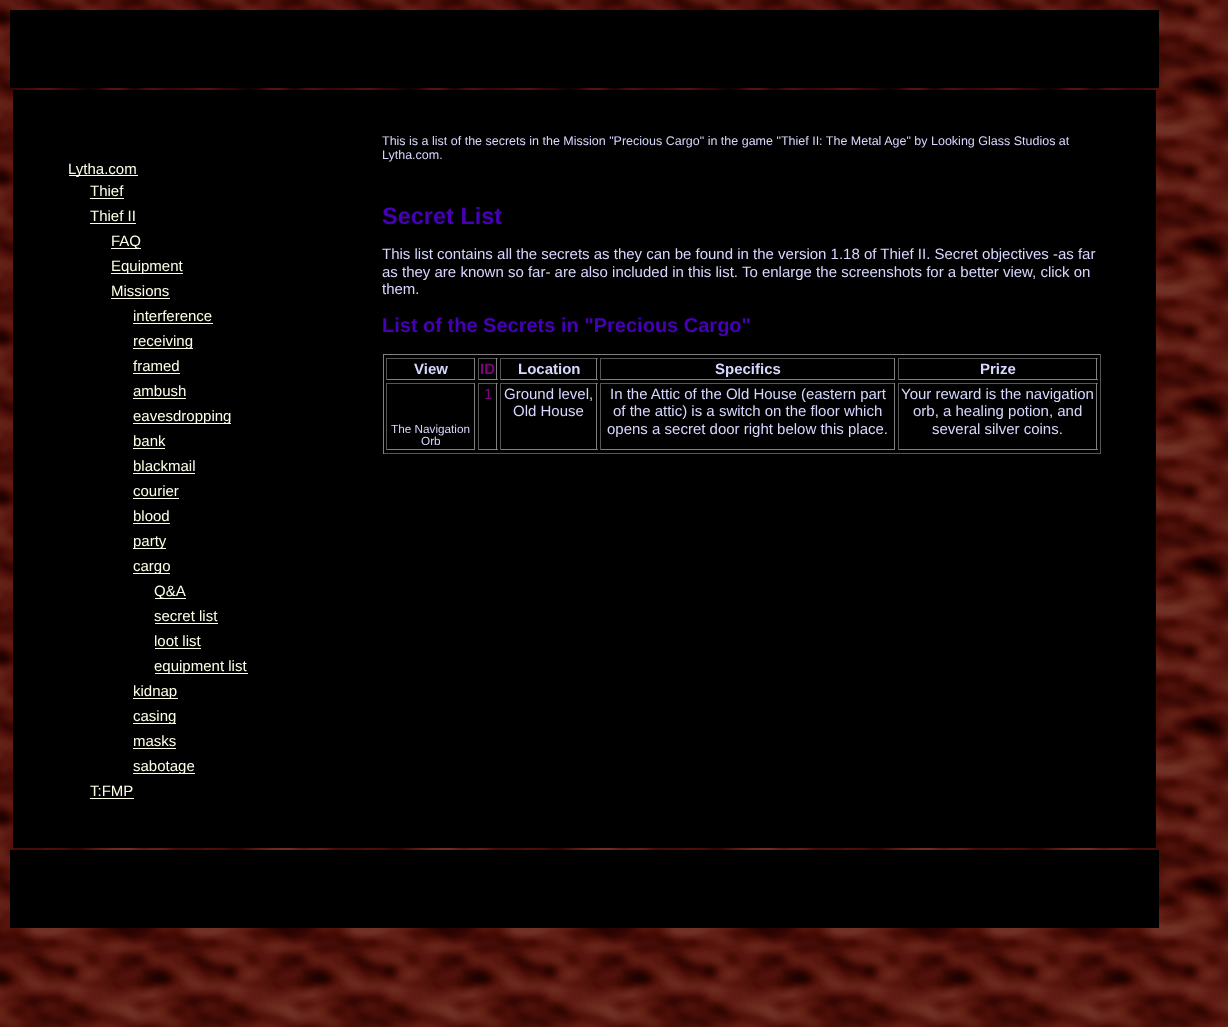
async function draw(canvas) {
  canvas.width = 1228
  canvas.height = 1027
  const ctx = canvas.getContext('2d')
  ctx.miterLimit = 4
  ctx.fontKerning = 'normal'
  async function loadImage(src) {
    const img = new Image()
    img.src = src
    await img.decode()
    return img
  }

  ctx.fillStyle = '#fff'
  ctx.fillRect(0, 0, 1228, 1027)
  ctx.drawImage(await loadImage('image0.png'), 0, 0, 1228, 1027)
  ctx.fillStyle = '#000'
  ctx.fillRect(10, 10, 1149, 78)
  ctx.fillRect(13, 90, 1143, 758)
  ctx.fillStyle = '#ffffe9'
  ctx.fillRect(69, 175, 69, 1)
  ctx.font = '15px Liberation Sans'
  ctx.fillText('Lytha.com', 68, 174)
  ctx.fillText('Thief', 90, 196)
  ctx.fillRect(90, 198, 34, 1)
  ctx.fillText('Thief II', 90, 221)
  ctx.fillRect(90, 223, 46, 1)
  ctx.fillRect(111, 248, 30, 1)
  ctx.fillText('FAQ', 111, 246)
  ctx.fillRect(111, 273, 72, 1)
  ctx.fillText('Equipment', 111, 271)
  ctx.fillText('Missions', 111, 296)
  ctx.fillRect(111, 298, 59, 1)
  ctx.fillText('interference', 133, 321)
  ctx.fillRect(133, 323, 80, 1)
  ctx.fillRect(133, 348, 60, 1)
  ctx.fillText('receiving', 133, 346)
  ctx.fillText('framed', 133, 371)
  ctx.fillRect(133, 373, 47, 1)
  ctx.fillText('ambush', 133, 396)
  ctx.fillRect(133, 398, 53, 1)
  ctx.fillRect(133, 423, 98, 1)
  ctx.fillText('eavesdropping', 133, 421)
  ctx.fillText('bank', 133, 446)
  ctx.fillRect(133, 448, 32, 1)
  ctx.fillText('blackmail', 133, 471)
  ctx.fillRect(133, 473, 62, 1)
  ctx.fillText('courier', 133, 496)
  ctx.fillRect(133, 498, 46, 1)
  ctx.fillText('blood', 133, 521)
  ctx.fillRect(133, 523, 37, 1)
  ctx.fillRect(133, 548, 33, 1)
  ctx.fillText('party', 133, 546)
  ctx.fillRect(133, 573, 37, 1)
  ctx.fillText('cargo', 133, 571)
  ctx.fillRect(155, 598, 31, 1)
  ctx.fillText('Q&A', 154, 596)
  ctx.fillText('secret list', 154, 621)
  ctx.fillRect(155, 623, 63, 1)
  ctx.fillText('loot list', 154, 646)
  ctx.fillRect(155, 648, 46, 1)
  ctx.fillRect(155, 673, 93, 1)
  ctx.fillText('equipment list', 154, 671)
  ctx.fillRect(133, 698, 45, 1)
  ctx.fillText('kidnap', 133, 696)
  ctx.fillRect(133, 723, 43, 1)
  ctx.fillText('casing', 133, 721)
  ctx.fillText('masks', 133, 746)
  ctx.fillRect(133, 748, 43, 1)
  ctx.fillRect(133, 773, 62, 1)
  ctx.fillText('sabotage', 133, 771)
  ctx.fillText('T:FMP', 90, 796)
  ctx.fillRect(90, 798, 44, 1)
  ctx.font = '12.5px Liberation Sans'
  ctx.fillStyle = '#d7d7ff'
  ctx.fillText('This is a list of the secrets in the Mission "Precious Cargo" in the game "Thief II: The Metal Age" by Looking Glass Studios at', 382, 145)
  ctx.fillText('Lytha.com.', 382, 159)
  ctx.font = 'bold 23.5px Liberation Sans'
  ctx.fillStyle = '#4700b8'
  ctx.fillText('Secret List', 382, 224)
  ctx.font = '15px Liberation Sans'
  ctx.fillStyle = '#d7d7ff'
  ctx.fillText('This list contains all the secrets as they can be found in the version 1.18 of Thief II. Secret objectives -as far', 382, 259)
  ctx.fillText('as they are known so far- are also included in this list. To enlarge the screenshots for a better view, click on', 382, 277)
  ctx.fillText('them.', 382, 294)
  ctx.font = 'bold 20px Liberation Sans'
  ctx.fillStyle = '#4700b8'
  ctx.fillText('List of the Secrets in "Precious Cargo"', 382, 332)
  ctx.fillStyle = '#808080'
  ctx.fillRect(383, 354, 718, 1)
  ctx.fillStyle = '#555'
  ctx.fillRect(1100, 354, 1, 100)
  ctx.fillRect(383, 453, 718, 1)
  ctx.fillStyle = '#808080'
  ctx.fillRect(383, 354, 1, 100)
  ctx.fillStyle = '#555'
  ctx.fillRect(386, 358, 89, 1)
  ctx.fillStyle = '#808080'
  ctx.fillRect(474, 358, 1, 22)
  ctx.fillRect(386, 379, 89, 1)
  ctx.fillStyle = '#555'
  ctx.fillRect(386, 358, 1, 22)
  ctx.font = 'bold 15px Liberation Sans'
  ctx.fillStyle = '#d7d7ff'
  ctx.fillText('View', 414, 374)
  ctx.fillStyle = '#555'
  ctx.fillRect(478, 358, 20, 1)
  ctx.fillStyle = '#808080'
  ctx.fillRect(496, 358, 1, 22)
  ctx.fillRect(478, 379, 20, 1)
  ctx.fillStyle = '#555'
  ctx.fillRect(478, 358, 1, 22)
  ctx.fillStyle = '#800080'
  ctx.fillText('ID', 480, 374)
  ctx.fillStyle = '#555'
  ctx.fillRect(500, 358, 98, 1)
  ctx.fillStyle = '#808080'
  ctx.fillRect(596, 358, 1, 22)
  ctx.fillRect(500, 379, 98, 1)
  ctx.fillStyle = '#555'
  ctx.fillRect(500, 358, 1, 22)
  ctx.fillStyle = '#d7d7ff'
  ctx.fillText('Location', 518, 374)
  ctx.fillStyle = '#555'
  ctx.fillRect(600, 358, 295, 1)
  ctx.fillStyle = '#808080'
  ctx.fillRect(894, 358, 1, 22)
  ctx.fillRect(600, 379, 295, 1)
  ctx.fillStyle = '#555'
  ctx.fillRect(600, 358, 1, 22)
  ctx.fillStyle = '#d7d7ff'
  ctx.fillText('Specifics', 715, 374)
  ctx.fillStyle = '#555'
  ctx.fillRect(898, 358, 200, 1)
  ctx.fillStyle = '#808080'
  ctx.fillRect(1096, 358, 1, 22)
  ctx.fillRect(898, 379, 200, 1)
  ctx.fillStyle = '#555'
  ctx.fillRect(898, 358, 1, 22)
  ctx.fillStyle = '#d7d7ff'
  ctx.fillText('Prize', 980, 374)
  ctx.fillStyle = '#555'
  ctx.fillRect(386, 383, 89, 1)
  ctx.fillStyle = '#808080'
  ctx.fillRect(474, 383, 1, 67)
  ctx.fillRect(386, 449, 89, 1)
  ctx.fillStyle = '#555'
  ctx.fillRect(386, 383, 1, 67)
  ctx.font = '11.75px Liberation Sans'
  ctx.fillStyle = '#d7d7ff'
  ctx.fillText('The Navigation', 391, 433)
  ctx.fillText('Orb', 421, 445)
  ctx.fillStyle = '#555'
  ctx.fillRect(478, 383, 20, 1)
  ctx.fillStyle = '#808080'
  ctx.fillRect(496, 383, 1, 67)
  ctx.fillRect(478, 449, 20, 1)
  ctx.fillStyle = '#555'
  ctx.fillRect(478, 383, 1, 67)
  ctx.font = '15px Liberation Sans'
  ctx.fillStyle = '#800080'
  ctx.fillText('1', 484, 399)
  ctx.fillStyle = '#555'
  ctx.fillRect(500, 383, 98, 1)
  ctx.fillStyle = '#808080'
  ctx.fillRect(596, 383, 1, 67)
  ctx.fillRect(500, 449, 98, 1)
  ctx.fillStyle = '#555'
  ctx.fillRect(500, 383, 1, 67)
  ctx.fillStyle = '#d7d7ff'
  ctx.fillText('Ground level,', 504, 399)
  ctx.fillText('Old House', 513, 416)
  ctx.fillStyle = '#555'
  ctx.fillRect(600, 383, 295, 1)
  ctx.fillStyle = '#808080'
  ctx.fillRect(894, 383, 1, 67)
  ctx.fillRect(600, 449, 295, 1)
  ctx.fillStyle = '#555'
  ctx.fillRect(600, 383, 1, 67)
  ctx.fillStyle = '#d7d7ff'
  ctx.fillText('In the Attic of the Old House (eastern part', 610, 399)
  ctx.fillText('of the attic) is a switch on the floor which', 613, 416)
  ctx.fillText('opens a secret door right below this place.', 607, 434)
  ctx.fillStyle = '#555'
  ctx.fillRect(898, 383, 200, 1)
  ctx.fillStyle = '#808080'
  ctx.fillRect(1096, 383, 1, 67)
  ctx.fillRect(898, 449, 200, 1)
  ctx.fillStyle = '#555'
  ctx.fillRect(898, 383, 1, 67)
  ctx.fillStyle = '#d7d7ff'
  ctx.fillText('Your reward is the navigation', 901, 399)
  ctx.fillText('orb, a healing potion, and', 913, 416)
  ctx.fillText('several silver coins.', 932, 434)
  ctx.fillStyle = '#000'
  ctx.fillRect(10, 850, 1149, 78)
}

draw(document.querySelector('canvas'))
